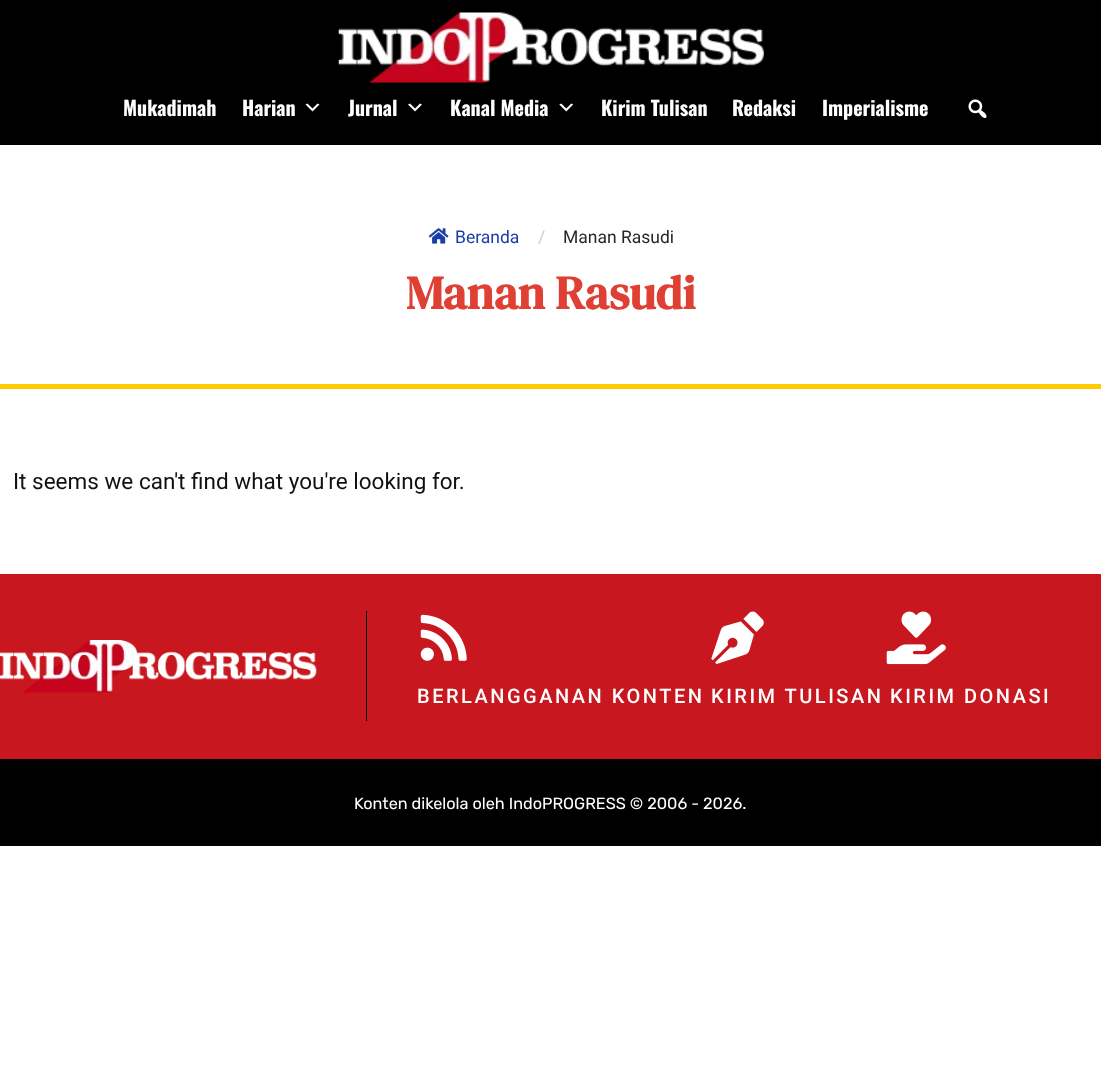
async function draw(canvas) {
  canvas.width = 1101
  canvas.height = 1071
  const ctx = canvas.getContext('2d')
  ctx.miterLimit = 4
  ctx.fontKerning = 'normal'
  async function loadImage(src) {
    const img = new Image()
    img.src = src
    await img.decode()
    return img
  }

  ctx.fillStyle = '#fff'
  ctx.fillRect(0, 0, 1101, 1071)
  ctx.fillStyle = '#000'
  ctx.fillRect(0, 0, 1101, 145)
  ctx.drawImage(await loadImage('image0.png'), 338, 12, 426, 71)
  ctx.font = 'bold 20px Oswald'
  ctx.fillStyle = '#fff'
  ctx.fillText('Mukadimah', 123, 116)
  ctx.fillText('Harian', 242, 116)
  ctx.drawImage(await loadImage('image1.png'), 305, 103, 15, 9)
  ctx.fillText('Jurnal', 348, 116)
  ctx.drawImage(await loadImage('image2.png'), 408, 103, 14, 9)
  ctx.fillText('Kanal Media', 450, 116)
  ctx.drawImage(await loadImage('image3.png'), 559, 103, 15, 9)
  ctx.fillText('Kirim Tulisan', 601, 116)
  ctx.fillText('Redaksi', 732, 116)
  ctx.fillText('Imperialisme', 822, 116)
  ctx.drawImage(await loadImage('image4.png'), 968, 99, 19, 19)
  ctx.fillStyle = '#fc0'
  ctx.fillRect(0, 384, 1101, 5)
  ctx.drawImage(await loadImage('image5.png'), 428, 228, 21, 16)
  ctx.font = '17.5px Roboto'
  ctx.fillStyle = '#1b3da8'
  ctx.fillText('Beranda', 455, 243)
  ctx.fillStyle = '#ccc'
  ctx.fillText('/', 538, 243)
  ctx.fillStyle = '#27272a'
  ctx.fillText('Manan Rasudi', 563, 243)
  ctx.font = 'bold 47.25px DM Serif Text'
  ctx.fillStyle = '#e04034'
  ctx.fillText('Manan Rasudi', 406, 309)
  ctx.font = '22.5px Roboto'
  ctx.fillStyle = '#111'
  ctx.fillText('It seems we can\'t find what you\'re looking for.', 13, 489)
  ctx.fillStyle = '#c8171e'
  ctx.fillRect(0, 574, 1101, 185)
  ctx.fillStyle = '#000'
  ctx.fillRect(366, 611, 1, 110)
  ctx.drawImage(await loadImage('image6.png'), 0, 640, 317, 53)
  ctx.drawImage(await loadImage('image7.png'), 420, 614, 47, 47)
  ctx.letterSpacing = '2.5px'
  ctx.font = '500 20px Roboto'
  ctx.fillStyle = '#fff'
  ctx.fillText('BERLANGGANAN KONTEN', 417, 703)
  ctx.drawImage(await loadImage('image8.png'), 711, 611, 53, 53)
  ctx.fillText('KIRIM TULISAN', 711, 703)
  ctx.drawImage(await loadImage('image9.png'), 886, 611, 60, 54)
  ctx.fillText('KIRIM DONASI', 890, 703)
  ctx.fillStyle = '#000'
  ctx.fillRect(0, 759, 1101, 87)
  ctx.letterSpacing = '0px'
  ctx.font = '16.25px Rubik'
  ctx.fillStyle = '#fff'
  ctx.fillText('Konten dikelola oleh IndoPROGRESS © 2006 - 2026.', 354, 809)
}

draw(document.querySelector('canvas'))
